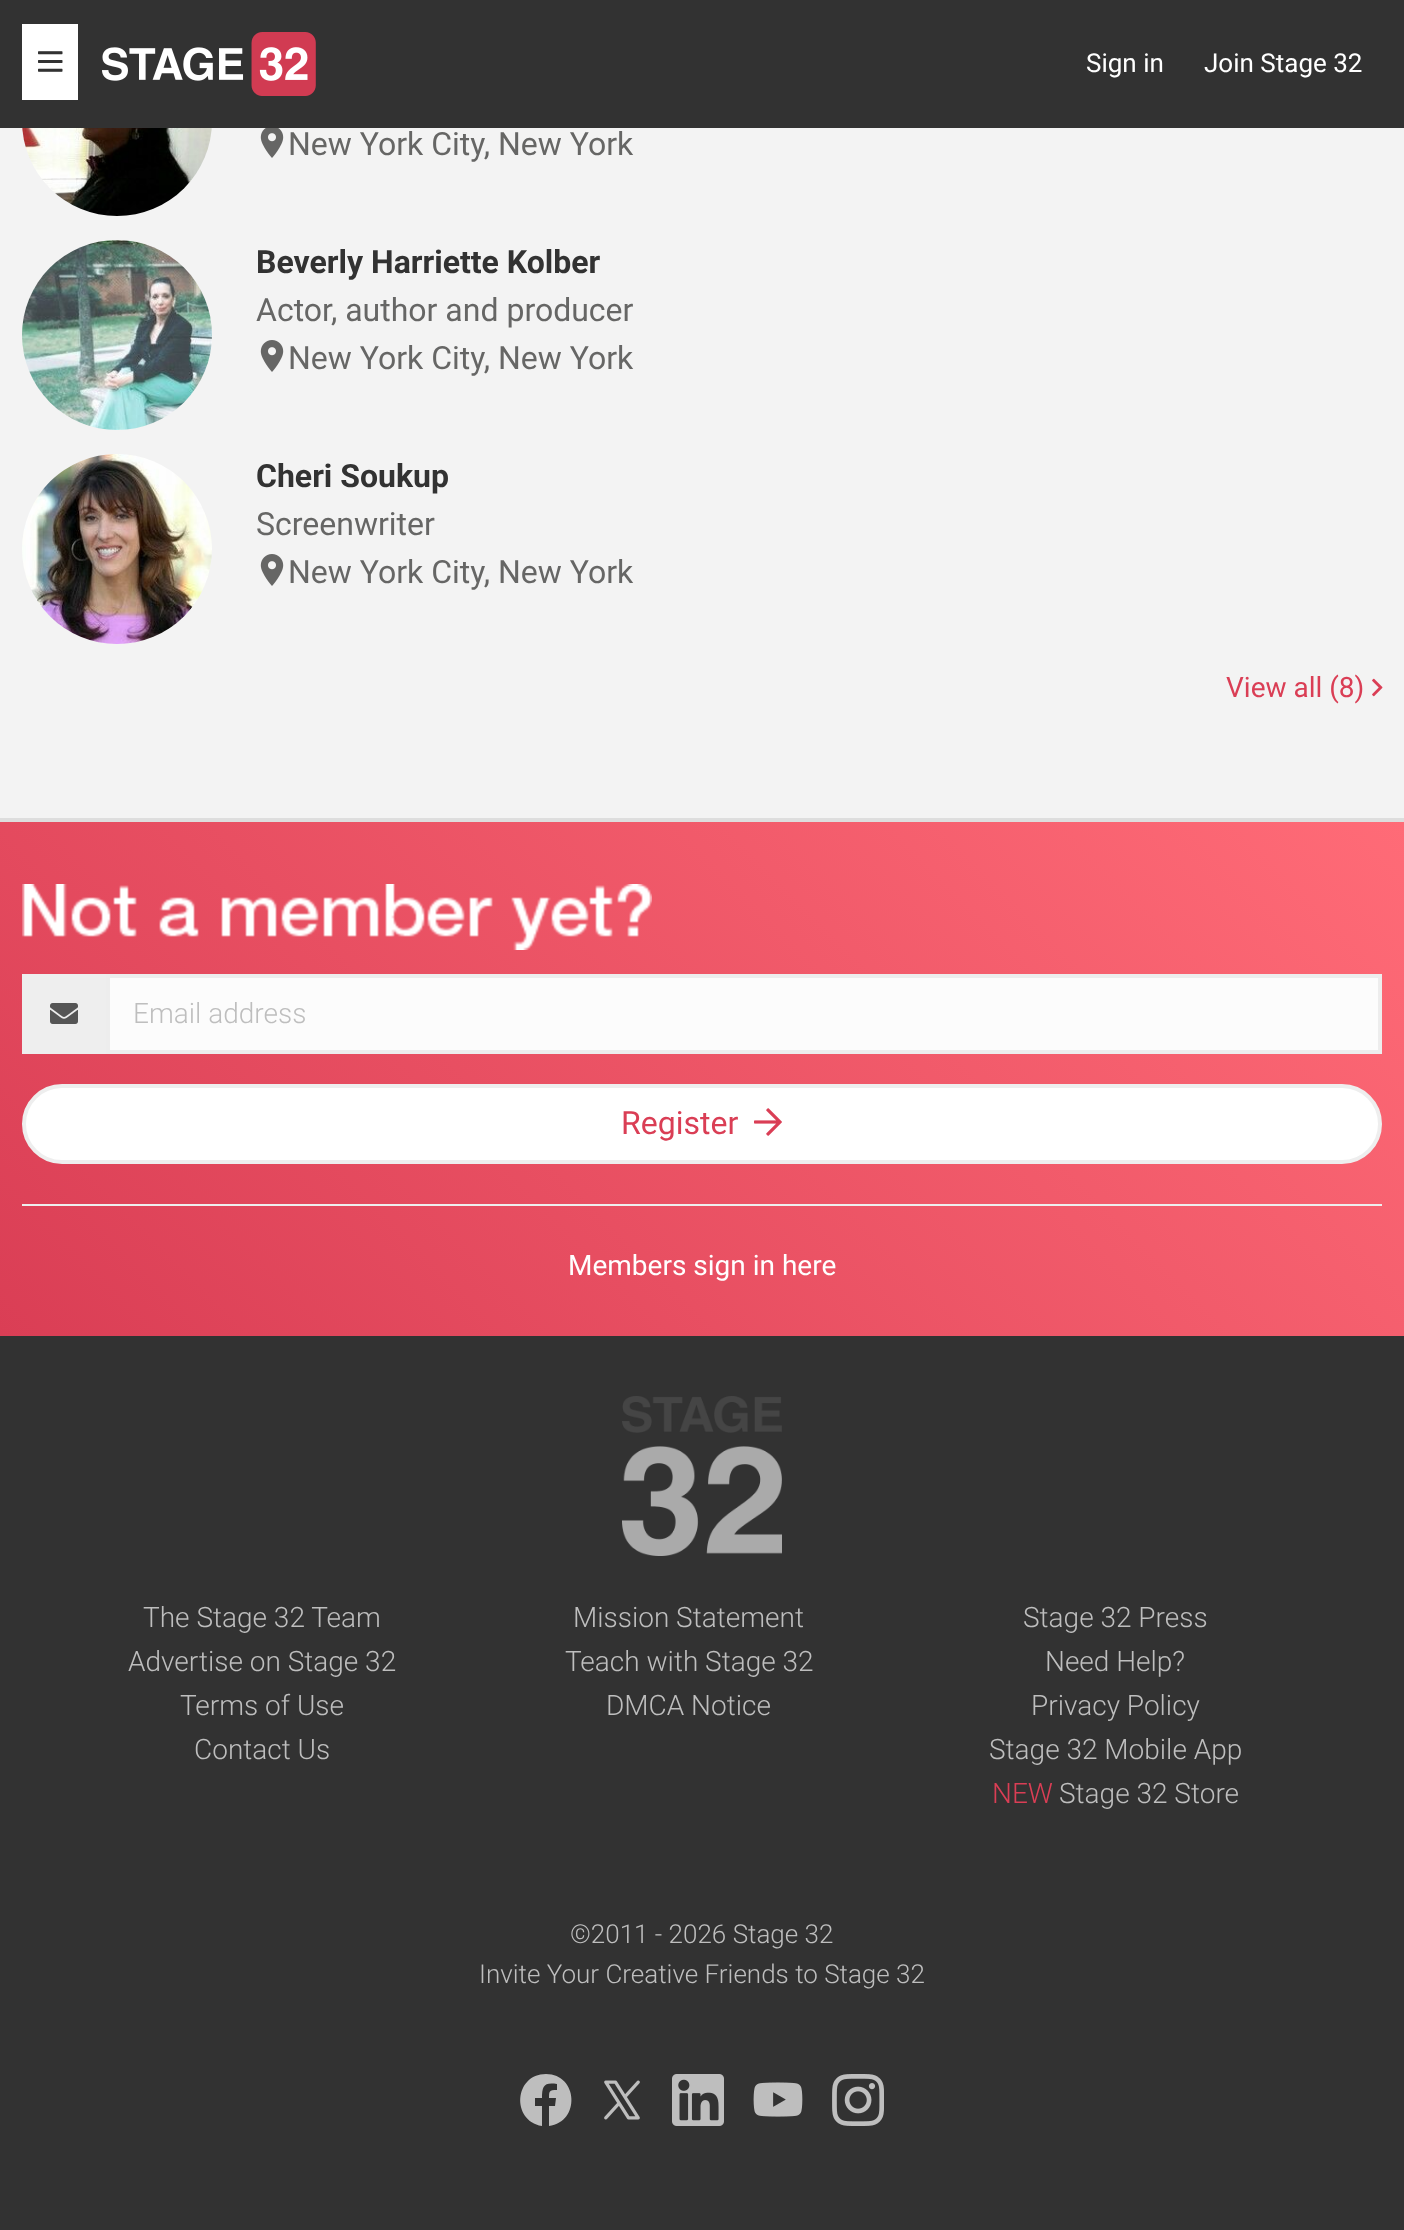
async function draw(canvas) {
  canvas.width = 1404
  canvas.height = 2230
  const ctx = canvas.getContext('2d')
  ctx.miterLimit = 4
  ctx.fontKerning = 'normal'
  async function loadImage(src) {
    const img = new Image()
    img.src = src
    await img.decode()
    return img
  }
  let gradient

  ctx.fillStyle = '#f3f3f3'
  ctx.fillRect(0, 0, 1404, 2230)
  ctx.fillStyle = '#323232'
  ctx.fillRect(0, 0, 1404, 128)
  ctx.fillStyle = '#fff'
  ctx.fillRect(22, 24, 56, 76)
  ctx.drawImage(await loadImage('image0.png'), 38, 51, 25, 21)
  ctx.drawImage(await loadImage('image1.png'), 102, 32, 214, 64)
  ctx.font = '26px Roboto'
  ctx.fillText('Sign in', 1086, 72)
  ctx.fillText('Join Stage 32', 1204, 72)
  ctx.drawImage(await loadImage('image2.png'), 22, 128, 190, 88)
  ctx.drawImage(await loadImage('image3.png'), 260, 128, 24, 30)
  ctx.font = '32px Roboto'
  ctx.fillStyle = '#666665'
  ctx.fillText('New York City, New York', 288, 155)
  ctx.drawImage(await loadImage('image4.png'), 22, 240, 190, 190)
  ctx.font = 'bold 32px Roboto'
  ctx.fillStyle = '#323232'
  ctx.fillText('Beverly Harriette Kolber', 256, 273)
  ctx.font = '32px Roboto'
  ctx.fillStyle = '#666665'
  ctx.fillText('Actor, author and producer', 256, 321)
  ctx.drawImage(await loadImage('image5.png'), 260, 340, 24, 32)
  ctx.fillText('New York City, New York', 288, 369)
  ctx.drawImage(await loadImage('image6.png'), 22, 454, 190, 190)
  ctx.font = 'bold 32px Roboto'
  ctx.fillStyle = '#323232'
  ctx.fillText('Cheri Soukup', 256, 487)
  ctx.font = '32px Roboto'
  ctx.fillStyle = '#666665'
  ctx.fillText('Screenwriter', 256, 535)
  ctx.drawImage(await loadImage('image5.png'), 260, 554, 24, 32)
  ctx.fillText('New York City, New York', 288, 583)
  ctx.font = '28px Roboto'
  ctx.fillStyle = '#da3e55'
  ctx.fillText('View all (8)', 1226, 697)
  ctx.drawImage(await loadImage('image7.png'), 1372, 678, 11, 19)
  gradient = ctx.createLinearGradient(223, 1559, 1182, 600)
  gradient.addColorStop(0, '#da3e55')
  gradient.addColorStop(1, '#ff6b77')
  ctx.fillStyle = gradient
  ctx.fillRect(0, 822, 1404, 514)
  ctx.fillStyle = '#ddd'
  ctx.fillRect(0, 818, 1404, 4)
  ctx.drawImage(await loadImage('image8.png'), 22, 884, 630, 66)
  ctx.fillStyle = '#eee'
  ctx.fillRect(22, 974, 84, 80)
  ctx.drawImage(await loadImage('image9.png'), 50, 1003, 28, 21)
  ctx.fillStyle = '#fcfcfc'
  ctx.beginPath()
  ctx.rect(108, 976, 1272, 76)
  ctx.fill()
  ctx.strokeStyle = '#ededed'
  ctx.lineWidth = 4
  ctx.stroke()
  ctx.font = '300 28px Roboto'
  ctx.fillStyle = '#bebebe'
  ctx.fillText('Email address', 133, 1023)
  ctx.fillStyle = '#fff'
  ctx.beginPath()
  ctx.roundRect(24, 1086, 1356, 76, 38)
  ctx.fill()
  ctx.strokeStyle = '#eee'
  ctx.stroke()
  ctx.font = '32px Roboto'
  ctx.fillStyle = '#da3e55'
  ctx.fillText('Register', 621, 1134)
  ctx.drawImage(await loadImage('image10.png'), 754, 1108, 28, 28)
  ctx.fillStyle = '#eee'
  ctx.fillRect(22, 1204, 1360, 2)
  ctx.font = '28px Roboto'
  ctx.fillStyle = '#fff'
  ctx.fillText('Members sign in here', 568, 1275)
  ctx.fillStyle = '#323232'
  ctx.fillRect(0, 1336, 1404, 894)
  ctx.drawImage(await loadImage('image11.png'), 622, 1396, 160, 160)
  ctx.font = '300 28px Roboto'
  ctx.fillStyle = '#bebebe'
  ctx.fillText('The Stage 32 Team', 143, 1627)
  ctx.fillText('Mission Statement', 573, 1627)
  ctx.fillText('Stage 32 Press', 1023, 1627)
  ctx.fillText('Advertise on Stage 32', 128, 1671)
  ctx.fillText('Teach with Stage 32', 565, 1671)
  ctx.fillText('Need Help?', 1045, 1671)
  ctx.fillText('Terms of Use', 180, 1715)
  ctx.fillText('DMCA Notice', 606, 1715)
  ctx.fillText('Privacy Policy', 1031, 1715)
  ctx.fillText('Contact Us', 194, 1759)
  ctx.fillText('Stage 32 Mobile App', 989, 1759)
  ctx.fillStyle = '#da3e55'
  ctx.fillText('NEW', 992, 1803)
  ctx.fillStyle = '#bebebe'
  ctx.fillText('Stage 32 Store', 1059, 1803)
  ctx.font = '300 26px Roboto'
  ctx.fillText('©2011 - 2026 Stage 32', 570, 1943)
  ctx.fillText('Invite Your Creative Friends to Stage 32', 479, 1983)
  ctx.beginPath()
  ctx.moveTo(546, 2074)
  ctx.bezierCurveTo(514, 2074, 511, 2121, 542, 2126)
  ctx.lineTo(542, 2106)
  ctx.lineTo(535, 2106)
  ctx.lineTo(535, 2098)
  ctx.lineTo(542, 2098)
  ctx.bezierCurveTo(542, 2086, 544, 2082, 557, 2084)
  ctx.lineTo(557, 2090)
  ctx.bezierCurveTo(549, 2090, 549, 2091, 549, 2098)
  ctx.lineTo(556, 2098)
  ctx.lineTo(555, 2106)
  ctx.lineTo(549, 2106)
  ctx.lineTo(549, 2126)
  ctx.bezierCurveTo(581, 2122, 578, 2074, 546, 2074)
  ctx.closePath()
  ctx.fill()
  ctx.drawImage(await loadImage('image12.png'), 604, 2080, 36, 40)
  ctx.drawImage(await loadImage('image13.png'), 672, 2074, 52, 52)
  ctx.drawImage(await loadImage('image14.png'), 753, 2082, 50, 35)
  ctx.drawImage(await loadImage('image15.png'), 832, 2074, 52, 52)
}

draw(document.querySelector('canvas'))
